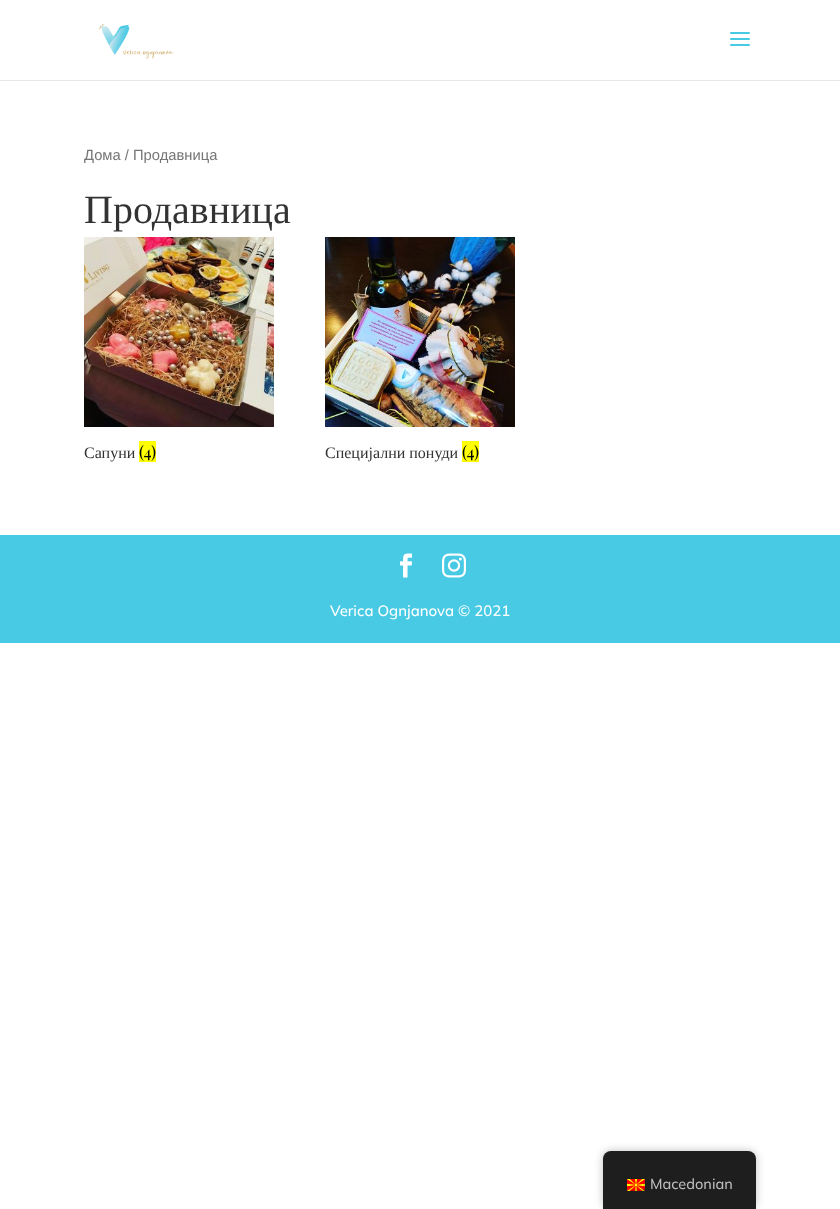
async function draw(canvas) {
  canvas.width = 840
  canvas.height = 1209
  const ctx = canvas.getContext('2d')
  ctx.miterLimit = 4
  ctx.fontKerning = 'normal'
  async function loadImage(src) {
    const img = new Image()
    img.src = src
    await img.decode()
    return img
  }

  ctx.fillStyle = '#fff'
  ctx.fillRect(0, 0, 840, 1209)
  ctx.fillStyle = '#e6e6e6'
  ctx.fillRect(0, 80, 840, 1)
  ctx.drawImage(await loadImage('image0.png'), 99, 23, 75, 36)
  ctx.drawImage(await loadImage('image1.png'), 730, 32, 20, 14)
  ctx.font = '14.75px Liberation Sans'
  ctx.fillStyle = '#767676'
  ctx.fillText('Дома / Продавница', 84, 160)
  ctx.font = '40px Liberation Serif'
  ctx.fillStyle = '#333'
  ctx.fillText('Продавница', 84, 223)
  ctx.drawImage(await loadImage('image2.png'), 84, 237, 190, 190)
  ctx.font = '16px Liberation Serif'
  ctx.fillText('Сапуни', 84, 458)
  ctx.fillStyle = '#ff0'
  ctx.fillRect(139, 441, 17, 21)
  ctx.font = '500 16px Playfair Display'
  ctx.fillStyle = '#000'
  ctx.fillText('(4)', 139, 458)
  ctx.drawImage(await loadImage('image3.png'), 325, 237, 190, 190)
  ctx.font = '16px Liberation Serif'
  ctx.fillStyle = '#333'
  ctx.fillText('Специјални понуди', 325, 458)
  ctx.fillStyle = '#ff0'
  ctx.fillRect(462, 441, 17, 21)
  ctx.font = '500 16px Playfair Display'
  ctx.fillStyle = '#000'
  ctx.fillText('(4)', 462, 458)
  ctx.fillStyle = '#48cae4'
  ctx.fillRect(0, 535, 840, 108)
  ctx.drawImage(await loadImage('image4.png'), 400, 553, 13, 25)
  ctx.drawImage(await loadImage('image5.png'), 442, 553, 24, 25)
  ctx.font = '200 15px Mulish'
  ctx.fillStyle = '#fff'
  ctx.fillText('Verica Ognjanova © 2021', 330, 616)
  ctx.fillStyle = '#00000040'
  ctx.filter = 'blur(4px)'
  ctx.beginPath()
  ctx.roundRect(603, 1151, 153, 58, 8)
  ctx.fill()
  ctx.filter = 'none'
  ctx.fillStyle = '#1e1e1e'
  ctx.beginPath()
  ctx.roundRect(603, 1151, 153, 58, [8, 8, 0, 0])
  ctx.fill()
  ctx.drawImage(await loadImage('image6.png'), 627, 1179, 18, 12)
  ctx.font = '200 14.5px Mulish'
  ctx.fillStyle = '#bdbdbd'
  ctx.fillText('Macedonian', 650, 1189)
}

draw(document.querySelector('canvas'))
